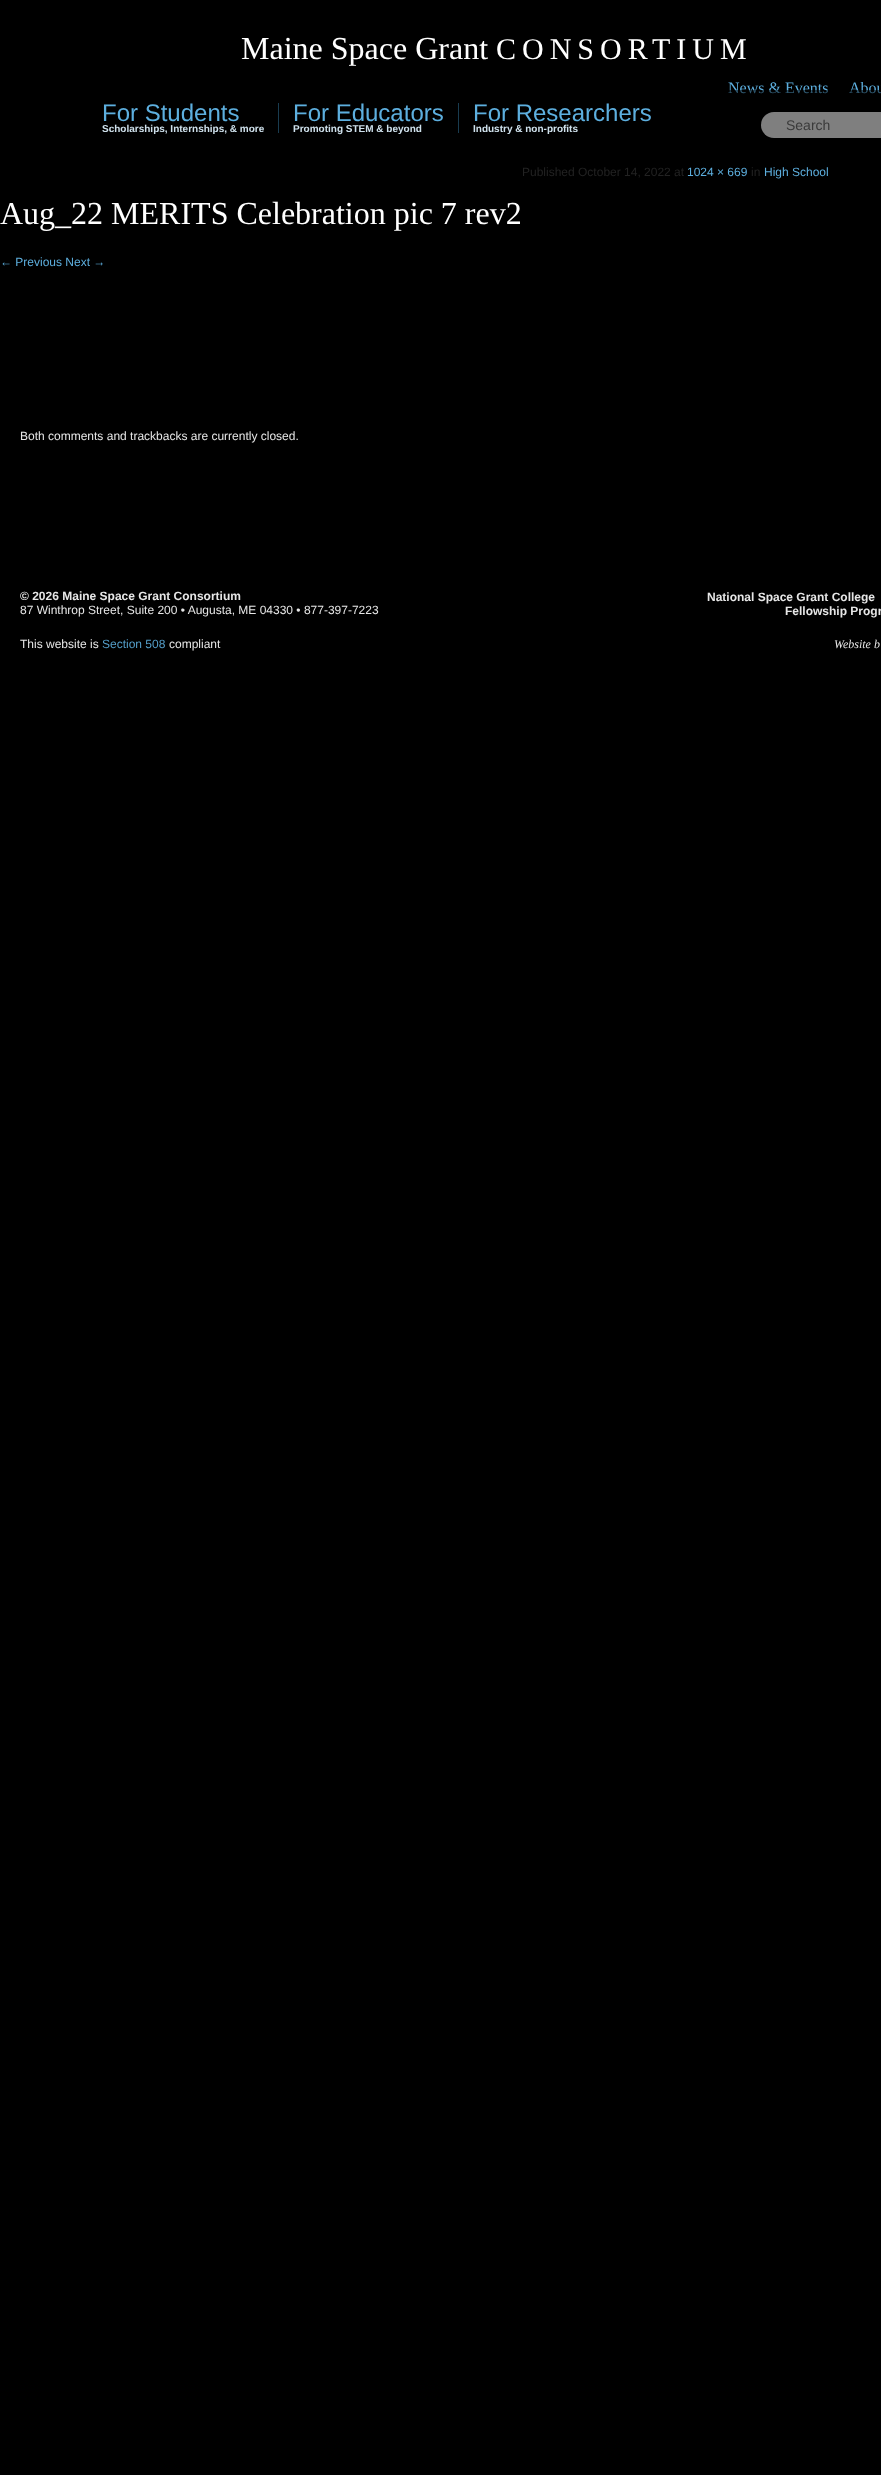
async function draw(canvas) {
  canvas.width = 881
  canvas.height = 2475
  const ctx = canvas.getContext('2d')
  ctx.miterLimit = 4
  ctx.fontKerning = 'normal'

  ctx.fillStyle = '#000'
  ctx.fillRect(0, 0, 881, 2475)
  ctx.font = '32px Liberation Serif'
  ctx.fillStyle = '#fff'
  ctx.fillText('Maine Space Grant', 241, 59)
  ctx.letterSpacing = '6px'
  ctx.font = '30px Liberation Serif'
  ctx.fillText('CONSORTIUM', 496, 59)
  ctx.letterSpacing = '0px'
  ctx.font = '16px Liberation Serif'
  ctx.fillStyle = '#5dafdf'
  ctx.fillText('News & Events', 728, 93)
  ctx.fillText('Abou', 849, 93)
  ctx.fillStyle = '#fff'
  ctx.beginPath()
  ctx.roundRect(761, 112, 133, 26, 13)
  ctx.fill()
  ctx.font = '14px Liberation Sans'
  ctx.fillStyle = '#757575'
  ctx.fillText('Search', 786, 130)
  ctx.fillStyle = '#00000080'
  ctx.fillRect(728, 90, 153, 48)
  ctx.fillStyle = '#193c50'
  ctx.fillRect(278, 103, 1, 30)
  ctx.font = '24px Liberation Sans'
  ctx.fillStyle = '#5dafdf'
  ctx.fillText('For Students', 102, 121)
  ctx.font = 'bold 10px Liberation Sans'
  ctx.fillStyle = '#cfe1ec'
  ctx.fillText('Scholarships, Internships, & more', 102, 132)
  ctx.fillStyle = '#193c50'
  ctx.fillRect(458, 103, 1, 30)
  ctx.font = '24px Liberation Sans'
  ctx.fillStyle = '#5dafdf'
  ctx.fillText('For Educators', 293, 121)
  ctx.font = 'bold 10px Liberation Sans'
  ctx.fillStyle = '#cfe1ec'
  ctx.fillText('Promoting STEM & beyond', 293, 132)
  ctx.font = '24px Liberation Sans'
  ctx.fillStyle = '#5dafdf'
  ctx.fillText('For Researchers', 473, 121)
  ctx.font = 'bold 10px Liberation Sans'
  ctx.fillStyle = '#cfe1ec'
  ctx.fillText('Industry & non-profits', 473, 132)
  ctx.font = '12px Liberation Sans'
  ctx.fillStyle = '#222'
  ctx.fillText('Published October 14, 2022 at', 522, 176)
  ctx.fillStyle = '#5dafdf'
  ctx.fillText('1024 × 669', 687, 176)
  ctx.fillStyle = '#222'
  ctx.fillText('in', 751, 176)
  ctx.fillStyle = '#5dafdf'
  ctx.fillText('High School', 764, 176)
  ctx.font = '32px Liberation Serif'
  ctx.fillStyle = '#fff'
  ctx.fillText('Aug_22 MERITS Celebration pic 7 rev2', 0, 224)
  ctx.font = '12px Liberation Sans'
  ctx.fillStyle = '#5dafdf'
  ctx.fillText('← Previous Next →', 0, 266)
  ctx.fillStyle = '#e6e6e6'
  ctx.fillText('Both comments and trackbacks are currently closed.', 20, 440)
  ctx.font = 'bold 12px Liberation Sans'
  ctx.fillText('© 2026 Maine Space Grant Consortium', 20, 600)
  ctx.fillText('National Space Grant College', 707, 601)
  ctx.fillText('Fellowship Progr', 785, 615)
  ctx.font = '12px Liberation Sans'
  ctx.fillText('87 Winthrop Street, Suite 200 • Augusta, ME 04330 • 877-397-7223', 20, 614)
  ctx.fillText('This website is', 20, 648)
  ctx.fillStyle = '#549ec9'
  ctx.fillText('Section 508', 102, 648)
  ctx.fillStyle = '#e6e6e6'
  ctx.fillText('compliant', 169, 648)
  ctx.font = 'italic 12px Liberation Serif'
  ctx.fillText('Website b', 834, 648)
}

draw(document.querySelector('canvas'))
